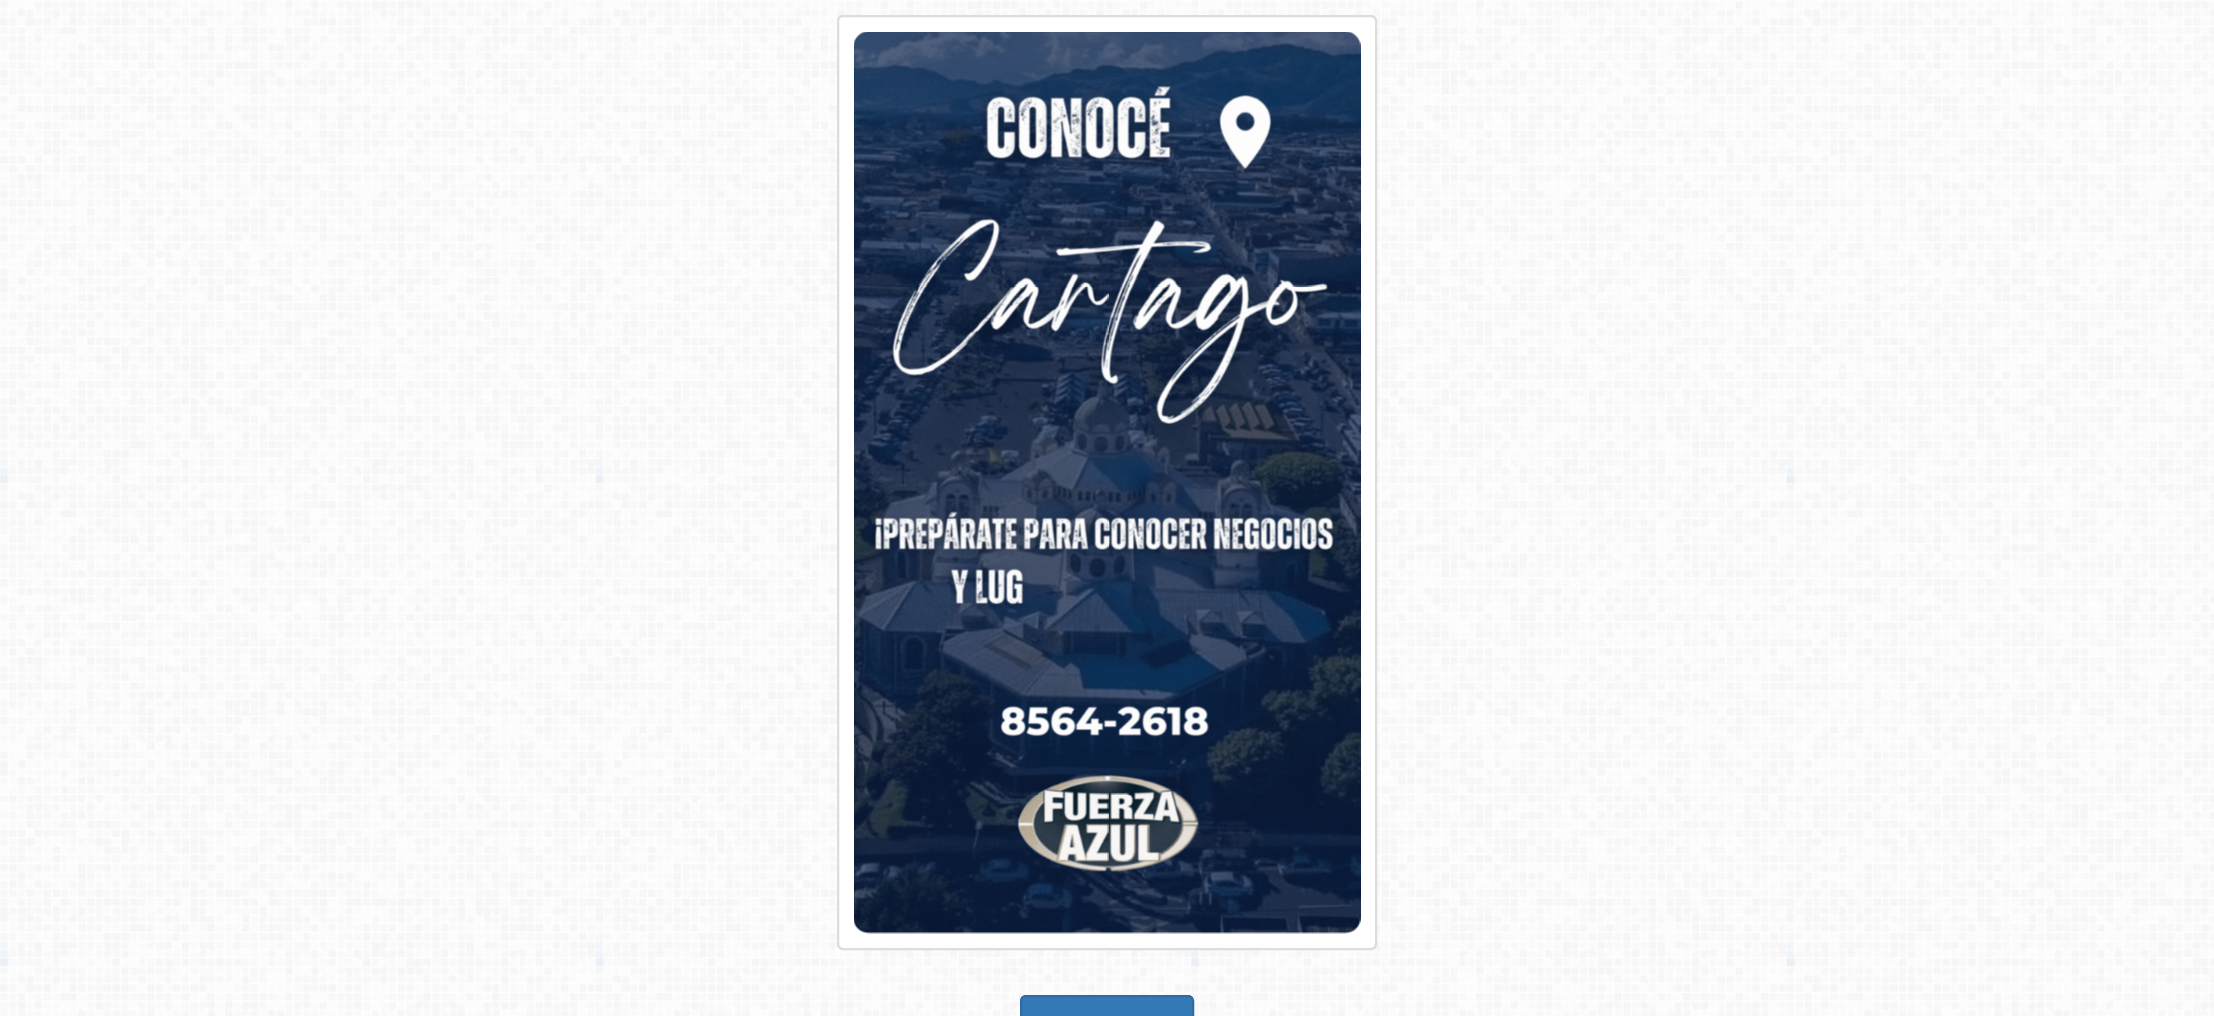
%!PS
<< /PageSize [2214 1016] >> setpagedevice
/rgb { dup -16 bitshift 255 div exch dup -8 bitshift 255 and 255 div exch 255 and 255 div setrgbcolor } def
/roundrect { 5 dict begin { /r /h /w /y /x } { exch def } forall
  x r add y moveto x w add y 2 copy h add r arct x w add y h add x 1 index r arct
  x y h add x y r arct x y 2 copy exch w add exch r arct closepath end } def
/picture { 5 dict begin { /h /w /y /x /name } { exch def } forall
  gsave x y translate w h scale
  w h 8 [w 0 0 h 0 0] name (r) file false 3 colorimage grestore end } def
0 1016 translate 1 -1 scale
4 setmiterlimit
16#FFFFFF rgb
0 0 2214 1016 rectfill
(pic1.raw) 0 0 2214 1016 picture
838 16 538 933 5 roundrect gsave fill grestore
16#DDDDDD rgb
2 setlinewidth
stroke
(pic2.raw) 854 32 507 902 picture
16#337AB7 rgb
1021 996 172 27 5 roundrect gsave fill grestore
16#2E6DA4 rgb
stroke
showpage
